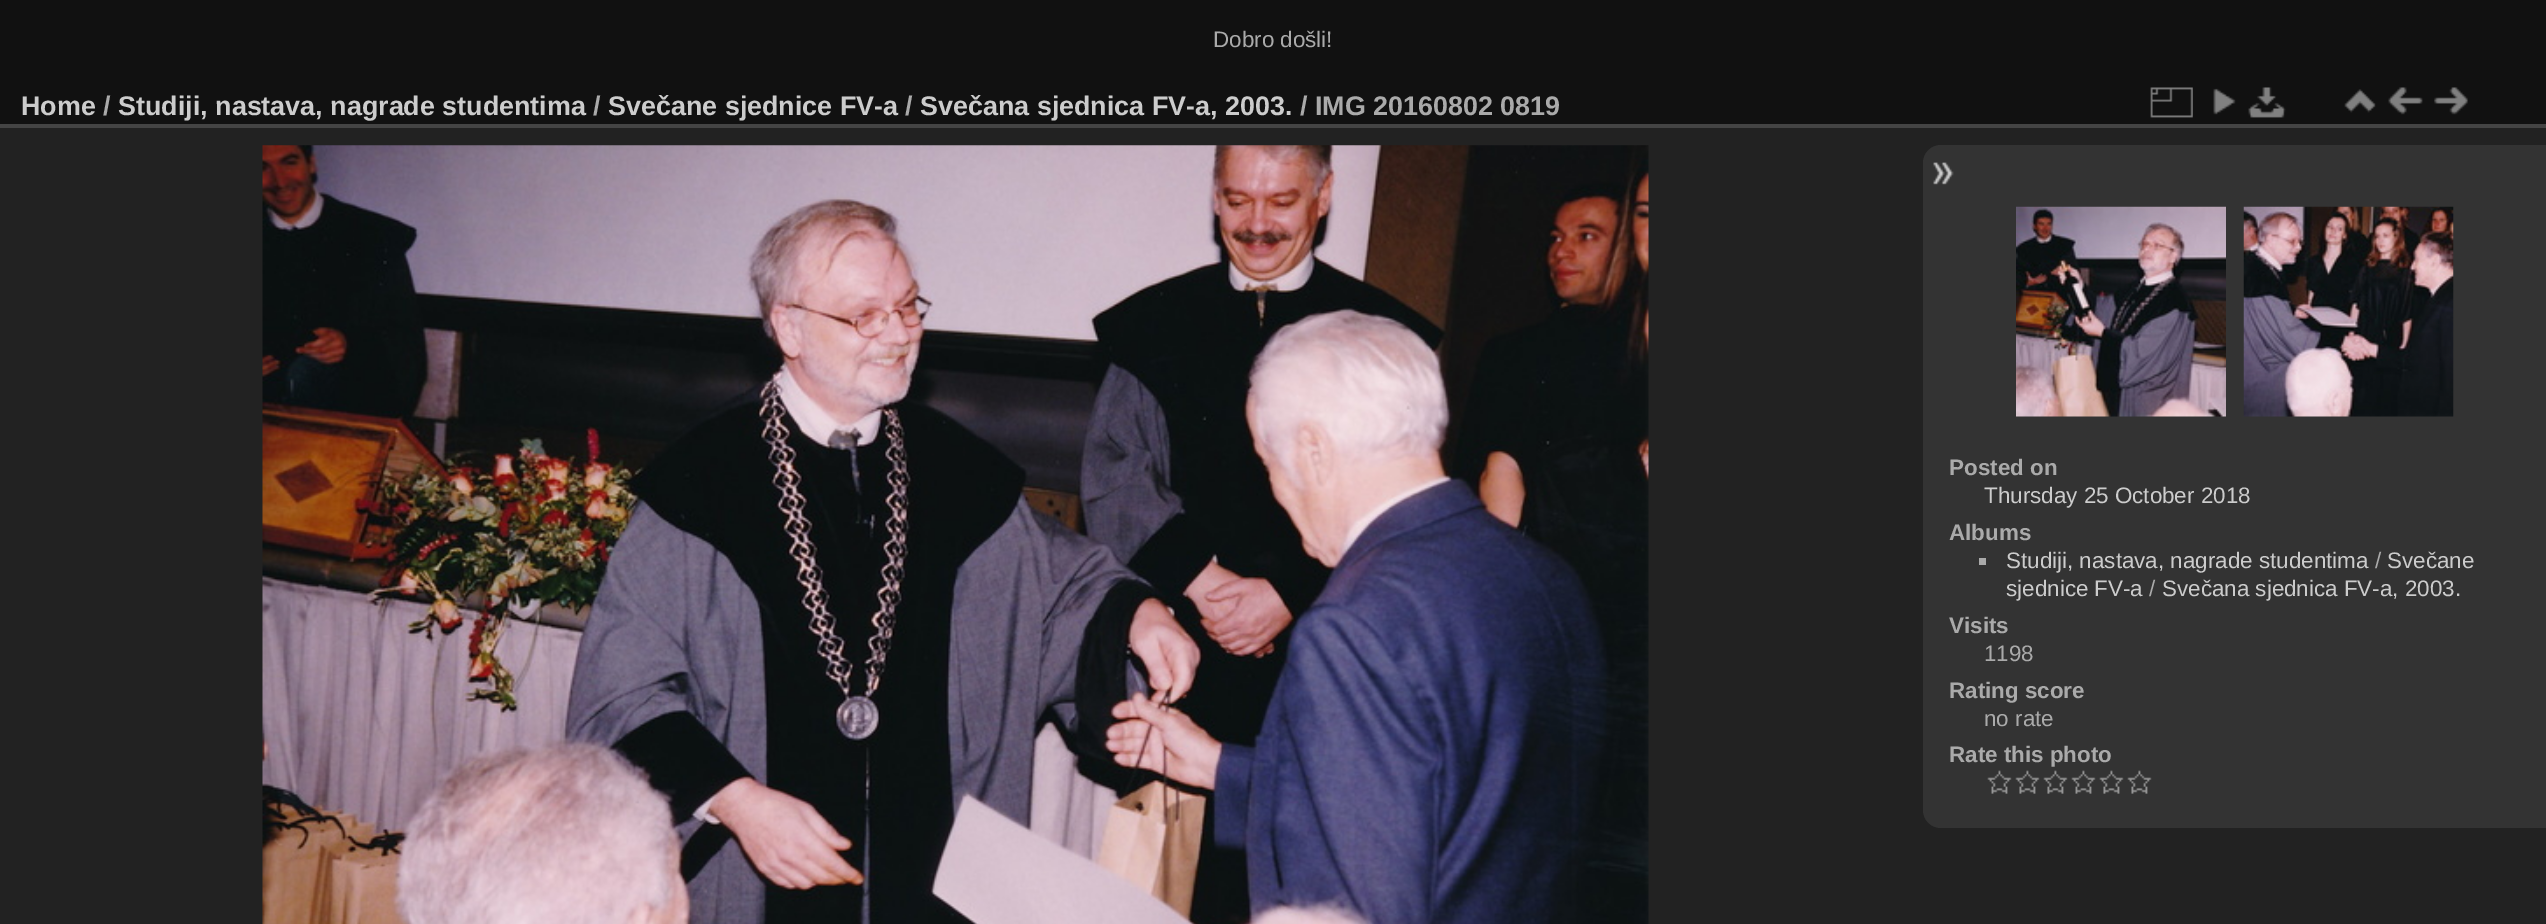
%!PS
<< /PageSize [2546 924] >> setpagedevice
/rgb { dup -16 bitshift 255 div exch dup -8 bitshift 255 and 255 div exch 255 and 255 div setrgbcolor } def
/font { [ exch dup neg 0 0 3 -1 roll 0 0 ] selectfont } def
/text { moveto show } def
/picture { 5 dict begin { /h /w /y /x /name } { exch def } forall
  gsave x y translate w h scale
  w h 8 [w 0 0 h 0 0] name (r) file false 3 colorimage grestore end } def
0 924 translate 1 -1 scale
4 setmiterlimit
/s1 { /LiberationSans-Regular 22.4 font 16#AAAAAA rgb } def
/s2 { /LiberationSans-Bold 26.9 font 16#CCCCCC rgb } def
/s3 { /LiberationSans-Bold 26.9 font 16#AAAAAA rgb } def
/s4 { /LiberationSans-Bold 22.4 font 16#AAAAAA rgb } def
/s5 { /LiberationSans-Regular 22.4 font 16#CCCCCC rgb } def
16#111111 rgb
0 0 2546 924 rectfill
s1
(Dobro došli!) 1213 47 text
16#222222 rgb
0 128 2546 796 rectfill
16#444444 rgb
0 124 2546 4 rectfill
s2
(Home) 21 115 text
s3
(/) 103 115 text
s2
(Studiji, nastava, nagrade studentima) 118 115 text
s3
(/) 593 115 text
s2
(Svečane sjednice FV-a) 608 115 text
s3
(/) 905 115 text
s2
(Svečana sjednica FV-a, 2003.) 920 115 text
s3
(/ IMG 20160802 0819) 1300 115 text
(pic1.raw) 2150 87 43 31 picture
(pic2.raw) 2213 88 23 27 picture
(pic3.raw) 2248 87 38 31 picture
(pic4.raw) 2344 89 32 24 picture
(pic5.raw) 2388 87 35 28 picture
(pic6.raw) 2434 87 34 28 picture
(pic7.raw) 262 145 1387 779 picture
16#333333 rgb
1941 145 moveto 2546 145 lineto 2546 828 lineto 1941 828 lineto 1931 828 1923 820 1923 810 curveto 1923 163 lineto 1923 153 1931 145 1941 145 curveto closepath fill
(pic8.raw) 1933 162 21 23 picture
(pic9.raw) 2016 206 210 211 picture
(pic10.raw) 2243 206 211 211 picture
s4
(Posted on) 1949 475 text
s5
(Thursday 25 October 2018) 1984 503 text
s4
(Albums) 1949 540 text
1979 558 7 7 rectfill
s5
(Studiji, nastava, nagrade studentima) 2006 568 text
s1
(/) 2375 568 text
s5
(Svečane) 2387 568 text
(sjednice FV-a) 2006 596 text
s1
(/) 2149 596 text
s5
(Svečana sjednica FV-a, 2003.) 2162 596 text
s4
(Visits) 1949 633 text
s1
(1198) 1984 661 text
s4
(Rating score) 1949 698 text
s1
(no rate) 1984 726 text
s4
(Rate this photo) 1949 762 text
(pic11.raw) 1987 770 25 24 picture
(pic12.raw) 2015 770 25 24 picture
(pic12.raw) 2043 770 25 24 picture
(pic13.raw) 2071 770 25 24 picture
(pic12.raw) 2099 770 25 24 picture
(pic12.raw) 2127 770 25 24 picture
showpage
